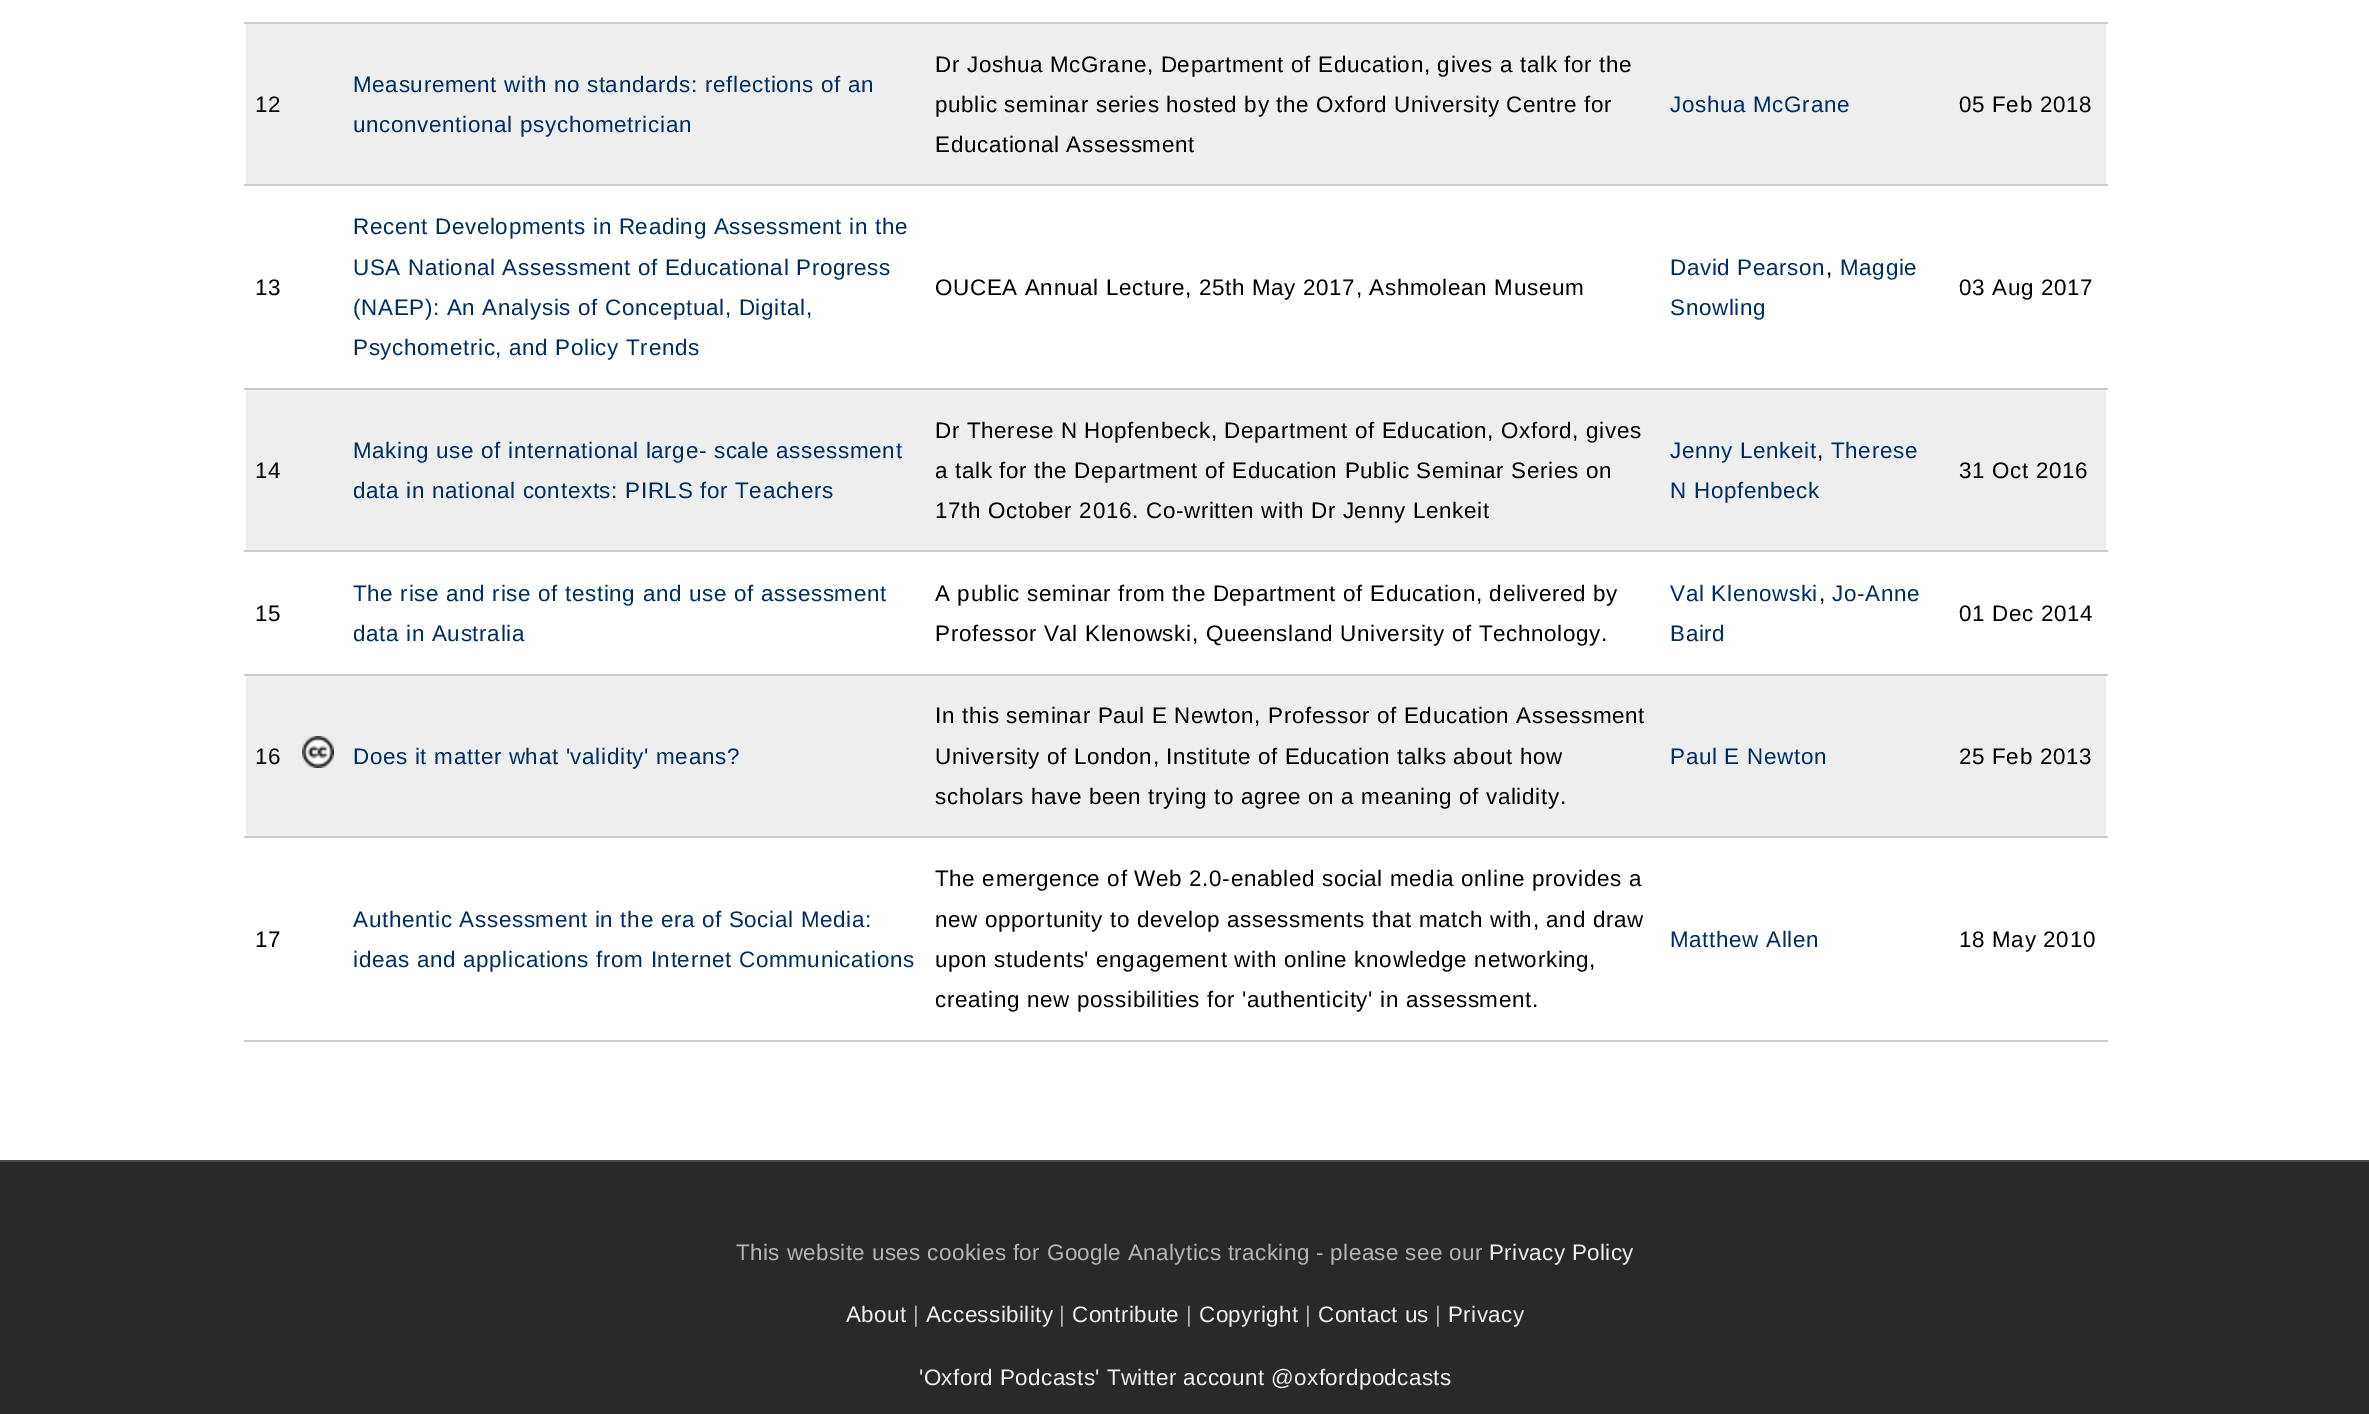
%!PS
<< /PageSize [2369 1414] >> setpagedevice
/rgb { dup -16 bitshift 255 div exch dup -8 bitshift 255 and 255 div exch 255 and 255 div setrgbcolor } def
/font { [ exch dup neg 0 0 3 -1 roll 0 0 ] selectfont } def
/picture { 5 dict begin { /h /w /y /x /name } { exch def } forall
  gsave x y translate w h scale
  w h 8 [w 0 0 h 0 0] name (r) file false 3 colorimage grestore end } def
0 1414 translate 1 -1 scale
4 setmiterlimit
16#FFFFFF rgb
0 0 2369 1414 rectfill
16#CCCCCC rgb
244 22 1864 2 rectfill
16#EEEEEE rgb
246 24 1860 160 rectfill
16#CCCCCC rgb
244 184 1864 2 rectfill
/LiberationSans-Regular 22.4 font
16#000000 rgb
255 112 moveto 0.67 0 (12) ashow
16#002D62 rgb
353 92 moveto 0.67 0 (Measurement with no standards: reflections of an) ashow
353 132 moveto 0.67 0 (unconventional psychometrician) ashow
16#000000 rgb
935 72 moveto 0.67 0 (Dr Joshua McGrane, Department of Education, gives a talk for the) ashow
935 112 moveto 0.67 0 (public seminar series hosted by the Oxford University Centre for) ashow
935 152 moveto 0.67 0 (Educational Assessment) ashow
16#002D62 rgb
1670 112 moveto 0.67 0 (Joshua McGrane) ashow
16#000000 rgb
1959 112 moveto 0.67 0 (05 Feb 2018) ashow
16#CCCCCC rgb
244 388 1864 2 rectfill
16#000000 rgb
255 295 moveto 0.67 0 (13) ashow
16#002D62 rgb
353 234 moveto 0.67 0 (Recent Developments in Reading Assessment in the) ashow
353 275 moveto 0.67 0 (USA National Assessment of Educational Progress) ashow
353 315 moveto 0.67 0 (\(NAEP\): An Analysis of Conceptual, Digital,) ashow
353 355 moveto 0.67 0 (Psychometric, and Policy Trends) ashow
16#000000 rgb
935 295 moveto 0.67 0 (OUCEA Annual Lecture, 25th May 2017, Ashmolean Museum) ashow
16#002D62 rgb
1670 275 moveto 0.67 0 (David Pearson) ashow
16#000000 rgb
1826 275 moveto 0.67 0 (,) ashow
16#002D62 rgb
1840 275 moveto 0.67 0 (Maggie) ashow
1670 315 moveto 0.67 0 (Snowling) ashow
16#000000 rgb
1959 295 moveto 0.67 0 (03 Aug 2017) ashow
16#EEEEEE rgb
246 390 1860 160 rectfill
16#CCCCCC rgb
244 550 1864 2 rectfill
16#000000 rgb
255 478 moveto 0.67 0 (14) ashow
16#002D62 rgb
353 458 moveto 0.67 0 (Making use of international large- scale assessment) ashow
353 498 moveto 0.67 0 (data in national contexts: PIRLS for Teachers) ashow
16#000000 rgb
935 438 moveto 0.67 0 (Dr Therese N Hopfenbeck, Department of Education, Oxford, gives) ashow
935 478 moveto 0.67 0 (a talk for the Department of Education Public Seminar Series on) ashow
935 518 moveto 0.67 0 (17th October 2016. Co-written with Dr Jenny Lenkeit) ashow
16#002D62 rgb
1670 458 moveto 0.67 0 (Jenny Lenkeit) ashow
16#000000 rgb
1817 458 moveto 0.67 0 (,) ashow
16#002D62 rgb
1831 458 moveto 0.67 0 (Therese) ashow
1670 498 moveto 0.67 0 (N Hopfenbeck) ashow
16#000000 rgb
1959 478 moveto 0.67 0 (31 Oct 2016) ashow
16#CCCCCC rgb
244 674 1864 2 rectfill
16#000000 rgb
255 621 moveto 0.67 0 (15) ashow
16#002D62 rgb
353 601 moveto 0.67 0 (The rise and rise of testing and use of assessment) ashow
353 641 moveto 0.67 0 (data in Australia) ashow
16#000000 rgb
935 601 moveto 0.67 0 (A public seminar from the Department of Education, delivered by) ashow
935 641 moveto 0.67 0 (Professor Val Klenowski, Queensland University of Technology.) ashow
16#002D62 rgb
1670 601 moveto 0.67 0 (Val Klenowski) ashow
16#000000 rgb
1819 601 moveto 0.67 0 (,) ashow
16#002D62 rgb
1832 601 moveto 0.67 0 (Jo-Anne) ashow
1670 641 moveto 0.67 0 (Baird) ashow
16#000000 rgb
1959 621 moveto 0.67 0 (01 Dec 2014) ashow
16#EEEEEE rgb
246 676 1860 160 rectfill
16#CCCCCC rgb
244 836 1864 2 rectfill
16#000000 rgb
255 764 moveto 0.67 0 (16) ashow
(pic1.raw) 302 736 32 32 picture
16#002D62 rgb
353 764 moveto 0.67 0 (Does it matter what 'validity' means?) ashow
16#000000 rgb
935 723 moveto 0.67 0 (In this seminar Paul E Newton, Professor of Education Assessment) ashow
935 764 moveto 0.67 0 (University of London, Institute of Education talks about how) ashow
935 804 moveto 0.67 0 (scholars have been trying to agree on a meaning of validity.) ashow
16#002D62 rgb
1670 764 moveto 0.67 0 (Paul E Newton) ashow
16#000000 rgb
1959 764 moveto 0.67 0 (25 Feb 2013) ashow
16#CCCCCC rgb
244 1040 1864 2 rectfill
16#000000 rgb
255 947 moveto 0.67 0 (17) ashow
16#002D62 rgb
353 927 moveto 0.67 0 (Authentic Assessment in the era of Social Media:) ashow
353 967 moveto 0.67 0 (ideas and applications from Internet Communications) ashow
16#000000 rgb
935 886 moveto 0.67 0 (The emergence of Web 2.0-enabled social media online provides a) ashow
935 927 moveto 0.67 0 (new opportunity to develop assessments that match with, and draw) ashow
935 967 moveto 0.67 0 (upon students' engagement with online knowledge networking,) ashow
935 1007 moveto 0.67 0 (creating new possibilities for 'authenticity' in assessment.) ashow
16#002D62 rgb
1670 947 moveto 0.67 0 (Matthew Allen) ashow
16#000000 rgb
1959 947 moveto 0.67 0 (18 May 2010) ashow
16#292929 rgb
0 1162 2369 252 rectfill
16#494949 rgb
0 1160 2369 2 rectfill
16#B4B4B4 rgb
736 1260 moveto 0.4 0 (This website uses cookies for Google Analytics tracking - please see our) ashow
16#EEEEEE rgb
1489 1260 moveto 0.4 0 (Privacy Policy) ashow
846 1322 moveto 0.4 0 (About) ashow
16#B4B4B4 rgb
913 1322 moveto 0.4 0 (|) ashow
16#EEEEEE rgb
926 1322 moveto 0.4 0 (Accessibility) ashow
16#B4B4B4 rgb
1059 1322 moveto 0.4 0 (|) ashow
16#EEEEEE rgb
1072 1322 moveto 0.4 0 (Contribute) ashow
16#B4B4B4 rgb
1186 1322 moveto 0.4 0 (|) ashow
16#EEEEEE rgb
1199 1322 moveto 0.4 0 (Copyright) ashow
16#B4B4B4 rgb
1305 1322 moveto 0.4 0 (|) ashow
16#EEEEEE rgb
1318 1322 moveto 0.4 0 (Contact us) ashow
16#B4B4B4 rgb
1435 1322 moveto 0.4 0 (|) ashow
16#EEEEEE rgb
1448 1322 moveto 0.4 0 (Privacy) ashow
919 1385 moveto 0.4 0 ('Oxford Podcasts' Twitter account @oxfordpodcasts) ashow
showpage
